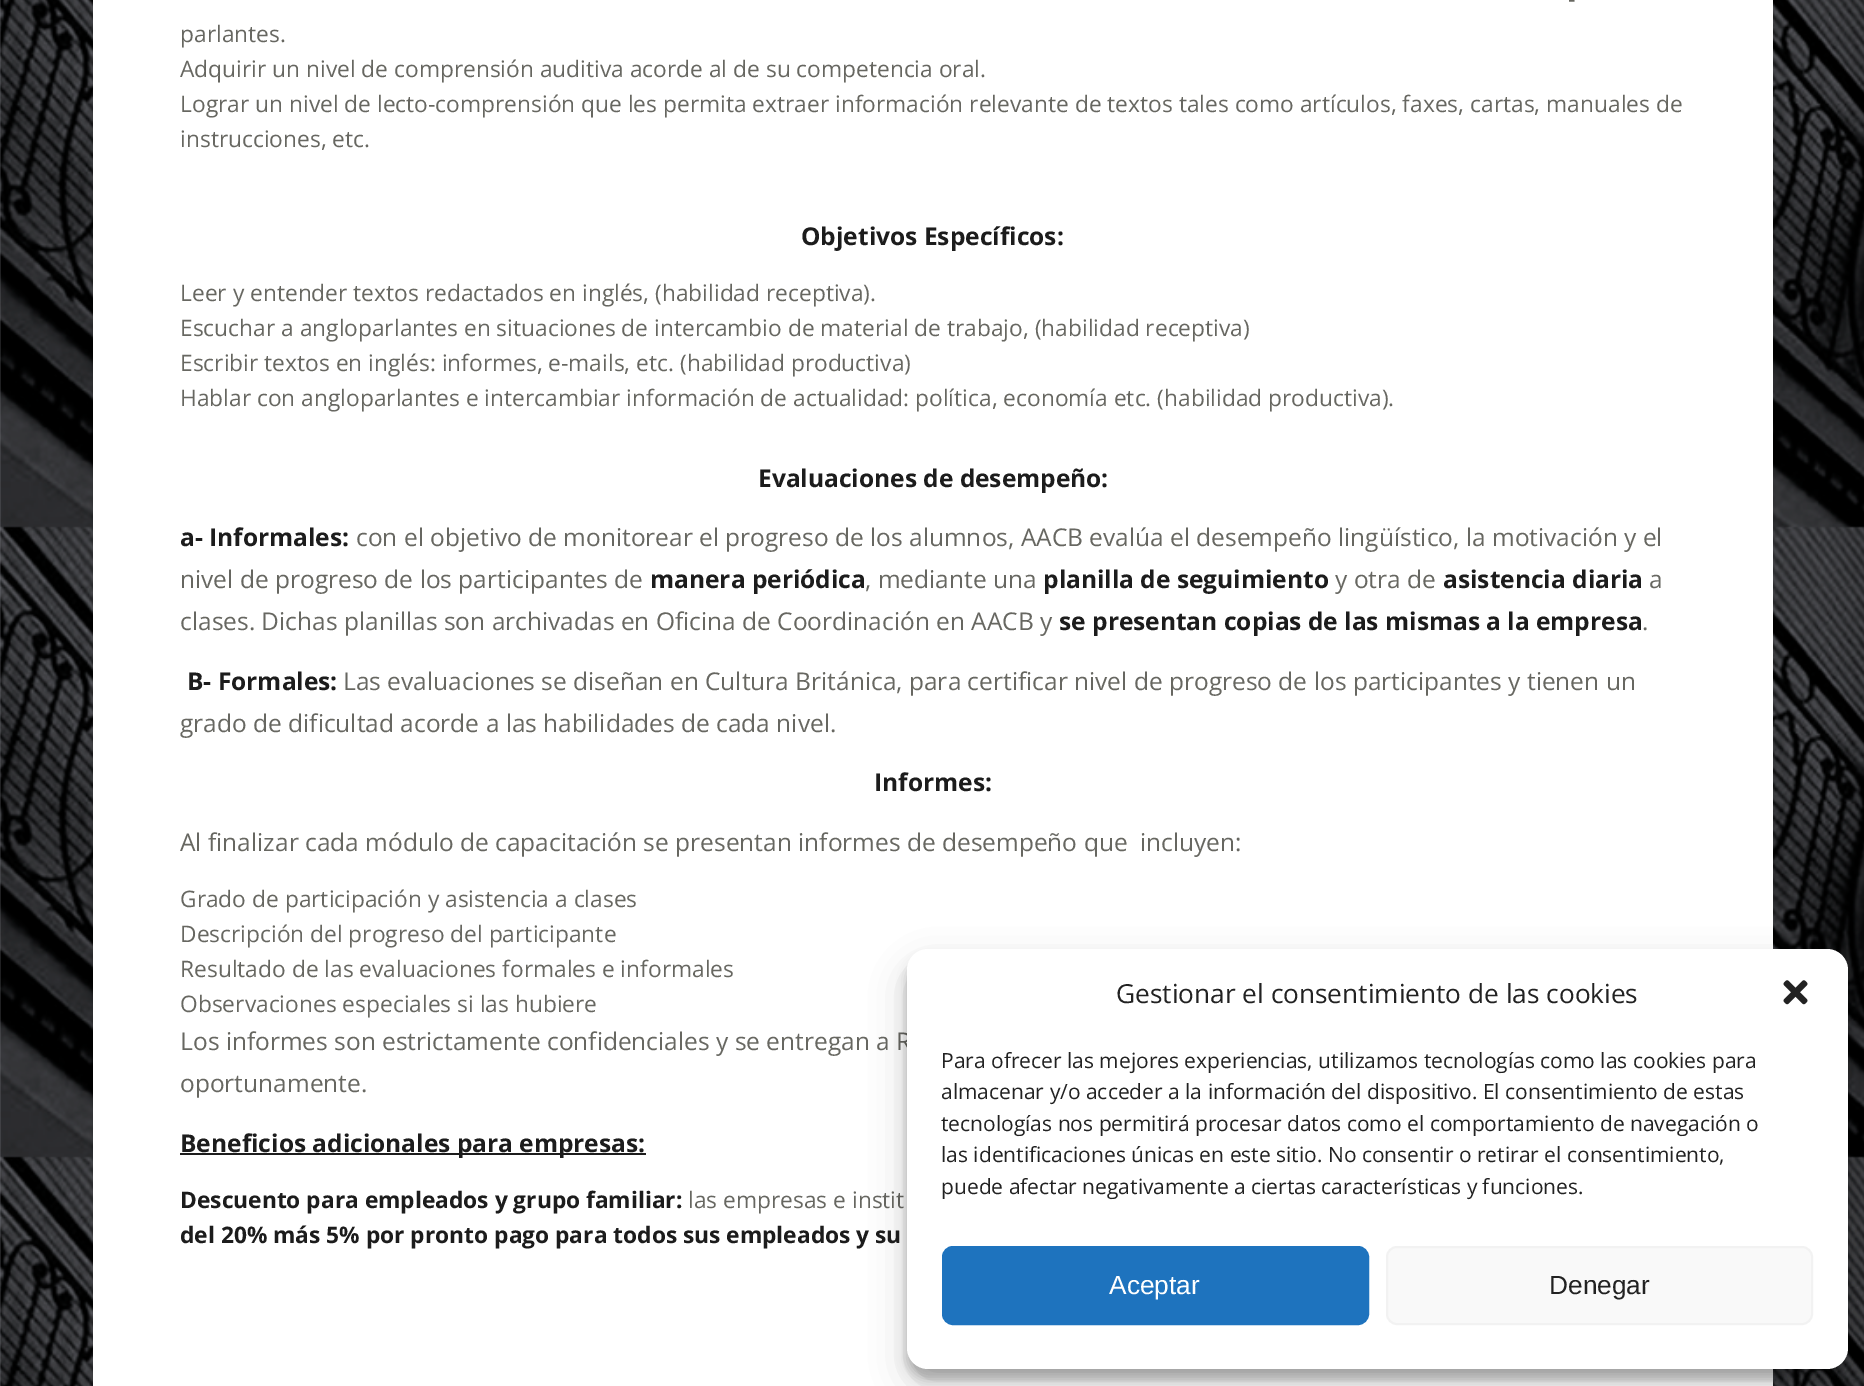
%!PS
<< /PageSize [1864 1386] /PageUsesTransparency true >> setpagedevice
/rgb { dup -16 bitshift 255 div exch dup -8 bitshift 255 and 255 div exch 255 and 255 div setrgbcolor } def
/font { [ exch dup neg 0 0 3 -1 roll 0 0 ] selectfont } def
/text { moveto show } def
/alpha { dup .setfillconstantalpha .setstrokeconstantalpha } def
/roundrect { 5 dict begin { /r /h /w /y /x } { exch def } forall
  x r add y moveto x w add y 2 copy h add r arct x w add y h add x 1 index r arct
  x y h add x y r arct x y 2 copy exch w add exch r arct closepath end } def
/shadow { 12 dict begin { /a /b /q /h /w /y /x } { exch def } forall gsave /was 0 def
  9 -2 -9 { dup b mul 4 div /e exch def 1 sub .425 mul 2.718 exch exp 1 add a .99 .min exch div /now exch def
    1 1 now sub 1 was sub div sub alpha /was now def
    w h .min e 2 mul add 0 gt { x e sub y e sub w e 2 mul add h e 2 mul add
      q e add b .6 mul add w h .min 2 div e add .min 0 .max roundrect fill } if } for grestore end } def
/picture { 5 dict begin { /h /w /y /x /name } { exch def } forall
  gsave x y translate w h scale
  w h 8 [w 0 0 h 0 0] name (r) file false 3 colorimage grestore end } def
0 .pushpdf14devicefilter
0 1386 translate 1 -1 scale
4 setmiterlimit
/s1 { /OpenSans-Regular 22.75 font 16#676761 rgb } def
/s2 { /OpenSans-Bold 24.5 font 16#1C1C1C rgb } def
/s3 { /OpenSans-Regular 24.5 font 16#676761 rgb } def
/s4 { /OpenSans-Bold 22.75 font 16#1C1C1C rgb } def
/s5 { /OpenSans-Regular 26.25 font 16#222222 rgb } def
/s6 { /OpenSans-Regular 21 font 16#222222 rgb } def
/s7 { /LiberationSans-Regular 26.25 font 16#FFFFFF rgb } def
/s8 { /LiberationSans-Regular 26.25 font 16#222222 rgb } def
16#FFFFFF rgb
0 0 1864 1386 rectfill
(pic1.raw) 0 0 1864 1386 picture
16#000000 rgb
93 -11 1680 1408 0 3.5 0.1 shadow
16#FFFFFF rgb
93 0 1680 1386 rectfill
s1
(-) 1568 7 text
(parlantes.) 180 42 text
(Adquirir un nivel de comprensión auditiva acorde al de su competencia oral.) 180 77 text
(Lograr un nivel de lecto-comprensión que les permita extraer información relevante de textos tales como artículos, faxes, cartas, manuales de) 180 112 text
(instrucciones, etc.) 180 147 text
s2
(Objetivos Específicos:) 801 245 text
s1
(Leer y entender textos redactados en inglés, \(habilidad receptiva\).) 180 301 text
(Escuchar a angloparlantes en situaciones de intercambio de material de trabajo, \(habilidad receptiva\)) 180 336 text
(Escribir textos en inglés: informes, e-mails, etc. \(habilidad productiva\)) 180 371 text
(Hablar con angloparlantes e intercambiar información de actualidad: política, economía etc. \(habilidad productiva\).) 180 406 text
s2
(Evaluaciones de desempeño:) 758 487 text
(a- Informales:) 180 546 text
s3
(con el objetivo de monitorear el progreso de los alumnos, AACB evalúa el desempeño lingüístico, la motivación y el) 356 546 text
(nivel de progreso de los participantes de) 180 588 text
s2
(manera periódica) 650 588 text
s3
(, mediante una) 865 588 text
s2
(planilla de seguimiento) 1043 588 text
s3
(y otra de) 1335 588 text
s2
(asistencia diaria) 1443 588 text
s3
(a) 1649 588 text
(clases. Dichas planillas son archivadas en Oficina de Coordinación en AACB y) 180 630 text
s2
(se presentan copias de las mismas a la empresa) 1059 630 text
s3
(.) 1642 630 text
s2
(B- Formales:) 187 690 text
s3
(Las evaluaciones se diseñan en Cultura Británica, para certificar nivel de progreso de los participantes y tienen un) 343 690 text
(grado de dificultad acorde a las habilidades de cada nivel.) 180 732 text
s2
(Informes:) 874 791 text
s3
(Al finalizar cada módulo de capacitación se presentan informes de desempeño que  incluyen:) 180 851 text
s1
(Grado de participación y asistencia a clases) 180 907 text
(Descripción del progreso del participante) 180 942 text
(Resultado de las evaluaciones formales e informales) 180 977 text
(Observaciones especiales si las hubiere) 180 1012 text
s3
(Los informes son estrictamente confidenciales y se entregan a R) 180 1050 text
(oportunamente.) 180 1092 text
16#1C1C1C rgb
180 1153 466 2 rectfill
s2
(Beneficios adicionales para empresas:) 180 1152 text
s4
(Descuento para empleados y grupo familiar:) 180 1208 text
s1
(las empresas e instit) 688 1208 text
s4
(del 20% más 5% por pronto pago para todos sus empleados y su) 180 1243 text
16#000000 rgb
907 959 941 420 21 5 0.23 shadow
907 966 941 420 21 17.5 0.19 shadow
16#FFFFFF rgb
907 949 941 420 21 roundrect fill
s5
(Gestionar el consentimiento de las cookies) 1116 1003 text
(pic2.raw) 1783 980 25 25 picture
s6
(Para ofrecer las mejores experiencias, utilizamos tecnologías como las cookies para) 941 1068 text
(almacenar y/o acceder a la información del dispositivo. El consentimiento de estas) 941 1099 text
(tecnologías nos permitirá procesar datos como el comportamiento de navegación o) 941 1131 text
(las identificaciones únicas en este sitio. No consentir o retirar el consentimiento,) 941 1162 text
(puede afectar negativamente a ciertas características y funciones.) 941 1194 text
16#1E73BE rgb
943 1247 425 77 10 roundrect gsave fill grestore
2 setlinewidth
stroke
s7
(Aceptar) 1109 1294 text
16#F9F9F9 rgb
1387 1247 425 77 10 roundrect gsave fill grestore
16#F2F2F2 rgb
stroke
s8
(Denegar) 1549 1294 text
.poppdf14devicefilter showpage
